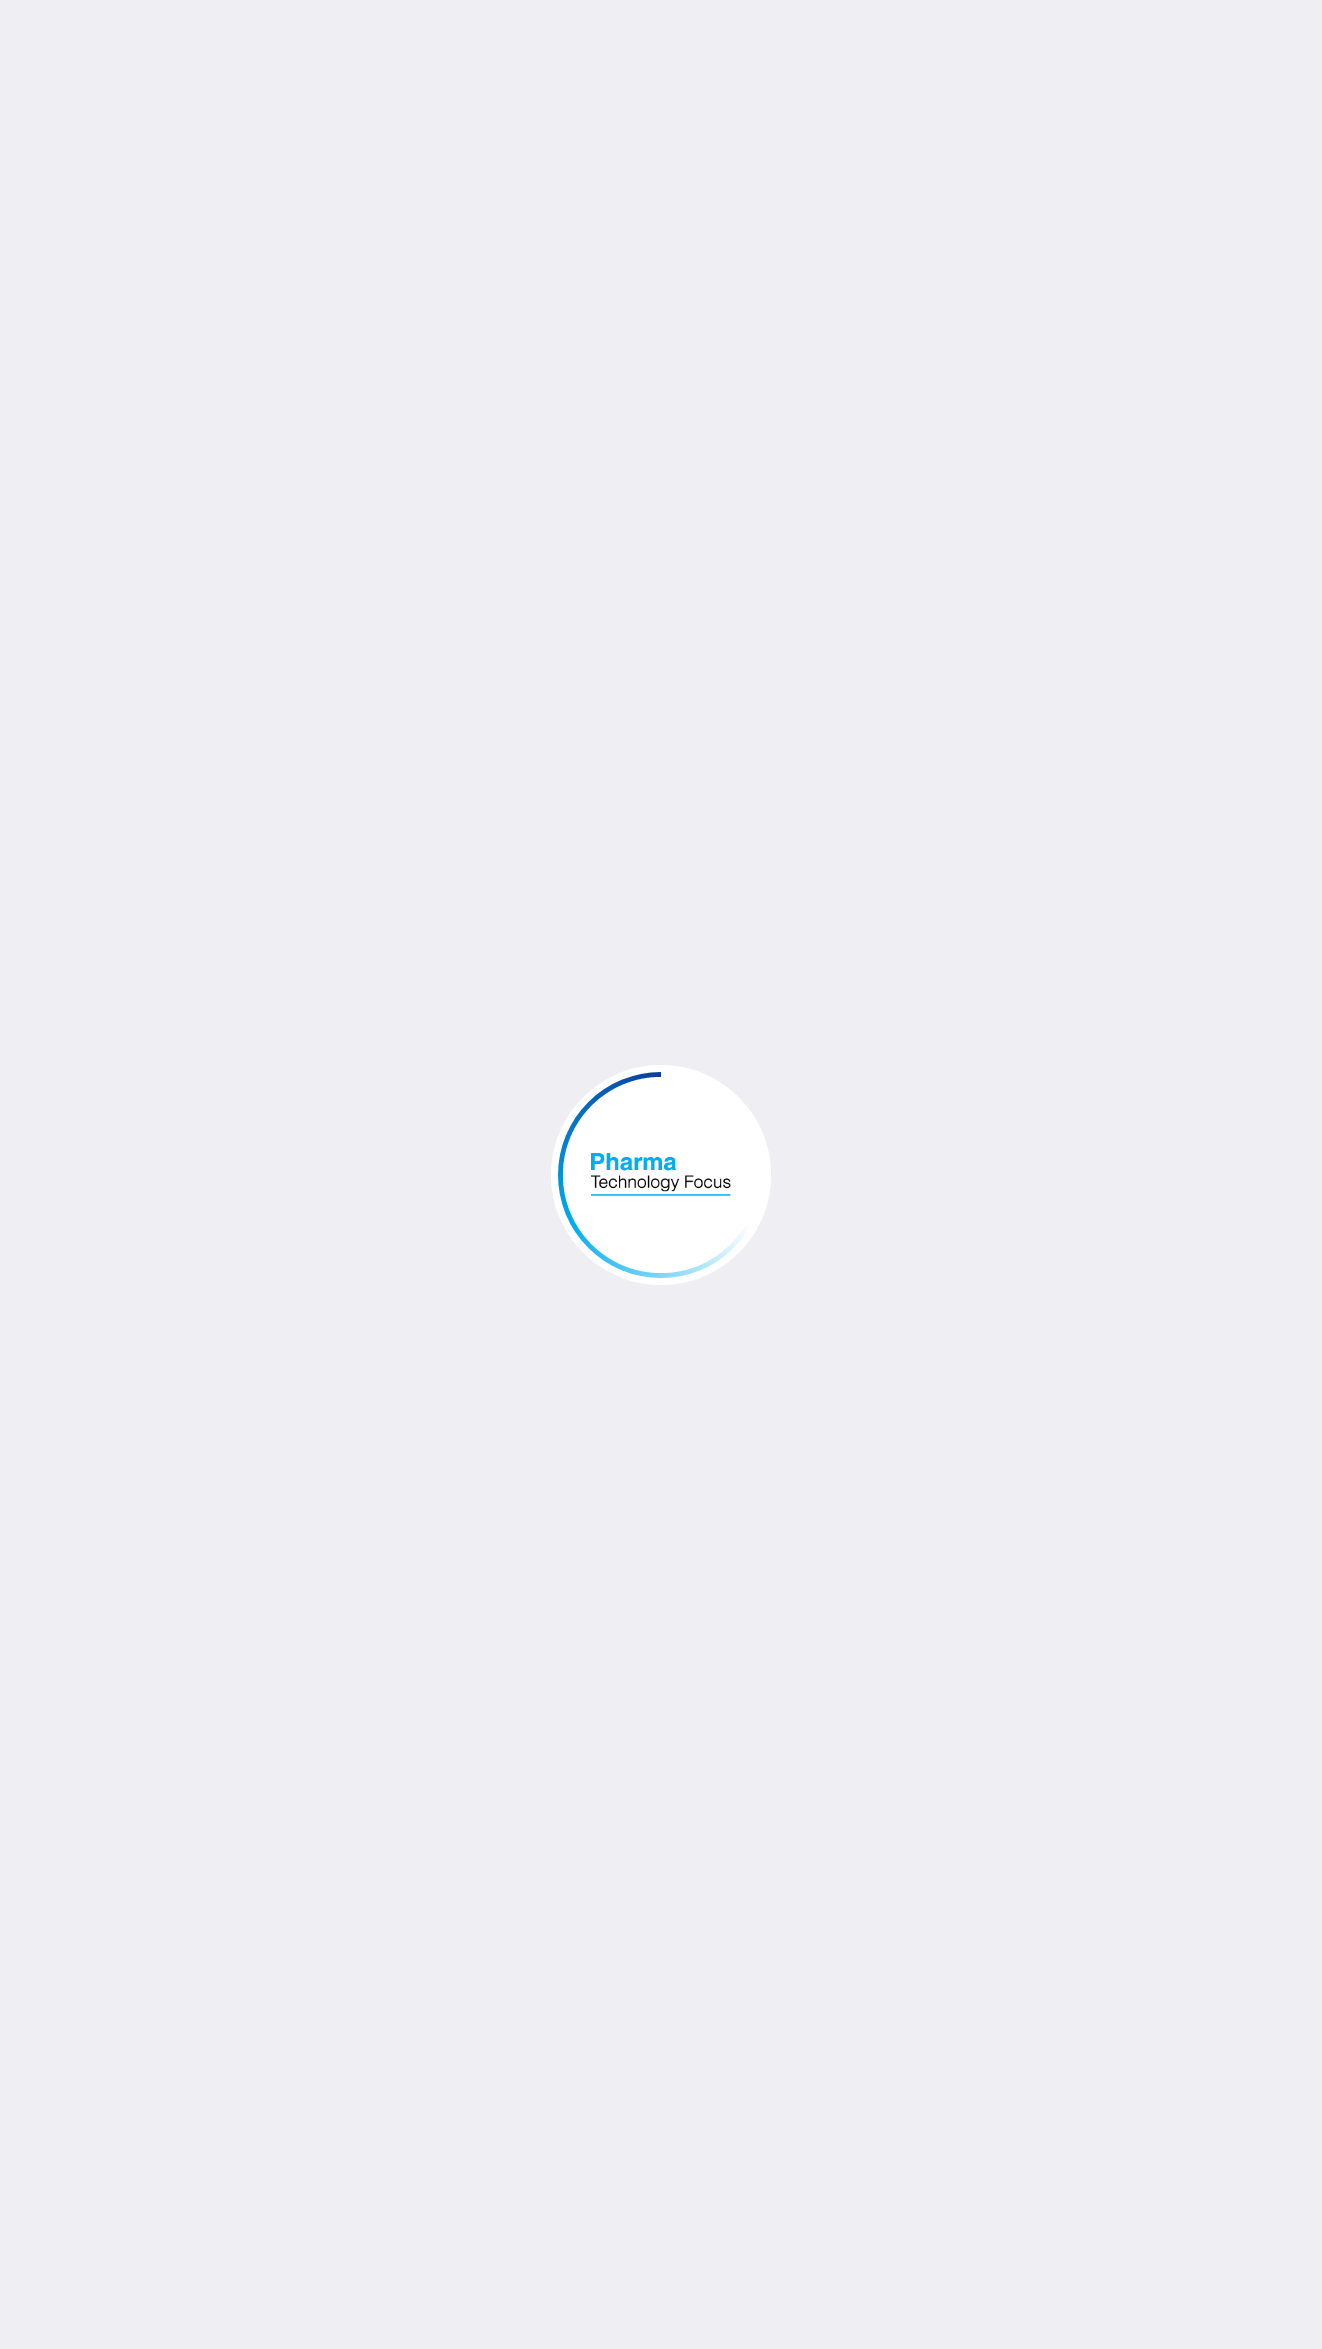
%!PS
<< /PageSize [1322 2349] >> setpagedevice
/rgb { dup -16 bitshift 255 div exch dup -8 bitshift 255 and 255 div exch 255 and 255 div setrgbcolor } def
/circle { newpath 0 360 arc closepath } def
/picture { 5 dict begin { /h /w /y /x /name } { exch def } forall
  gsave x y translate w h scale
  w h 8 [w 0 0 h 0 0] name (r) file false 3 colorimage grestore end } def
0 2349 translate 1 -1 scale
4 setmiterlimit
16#EEEEF3 rgb
0 0 1322 2349 rectfill
16#FFFFFF rgb
661 1175 110 circle fill
(pic1.raw) 558 1072 191 206 picture
661 1175 98 circle fill
(pic2.raw) 591 1153 140 44 picture
showpage
